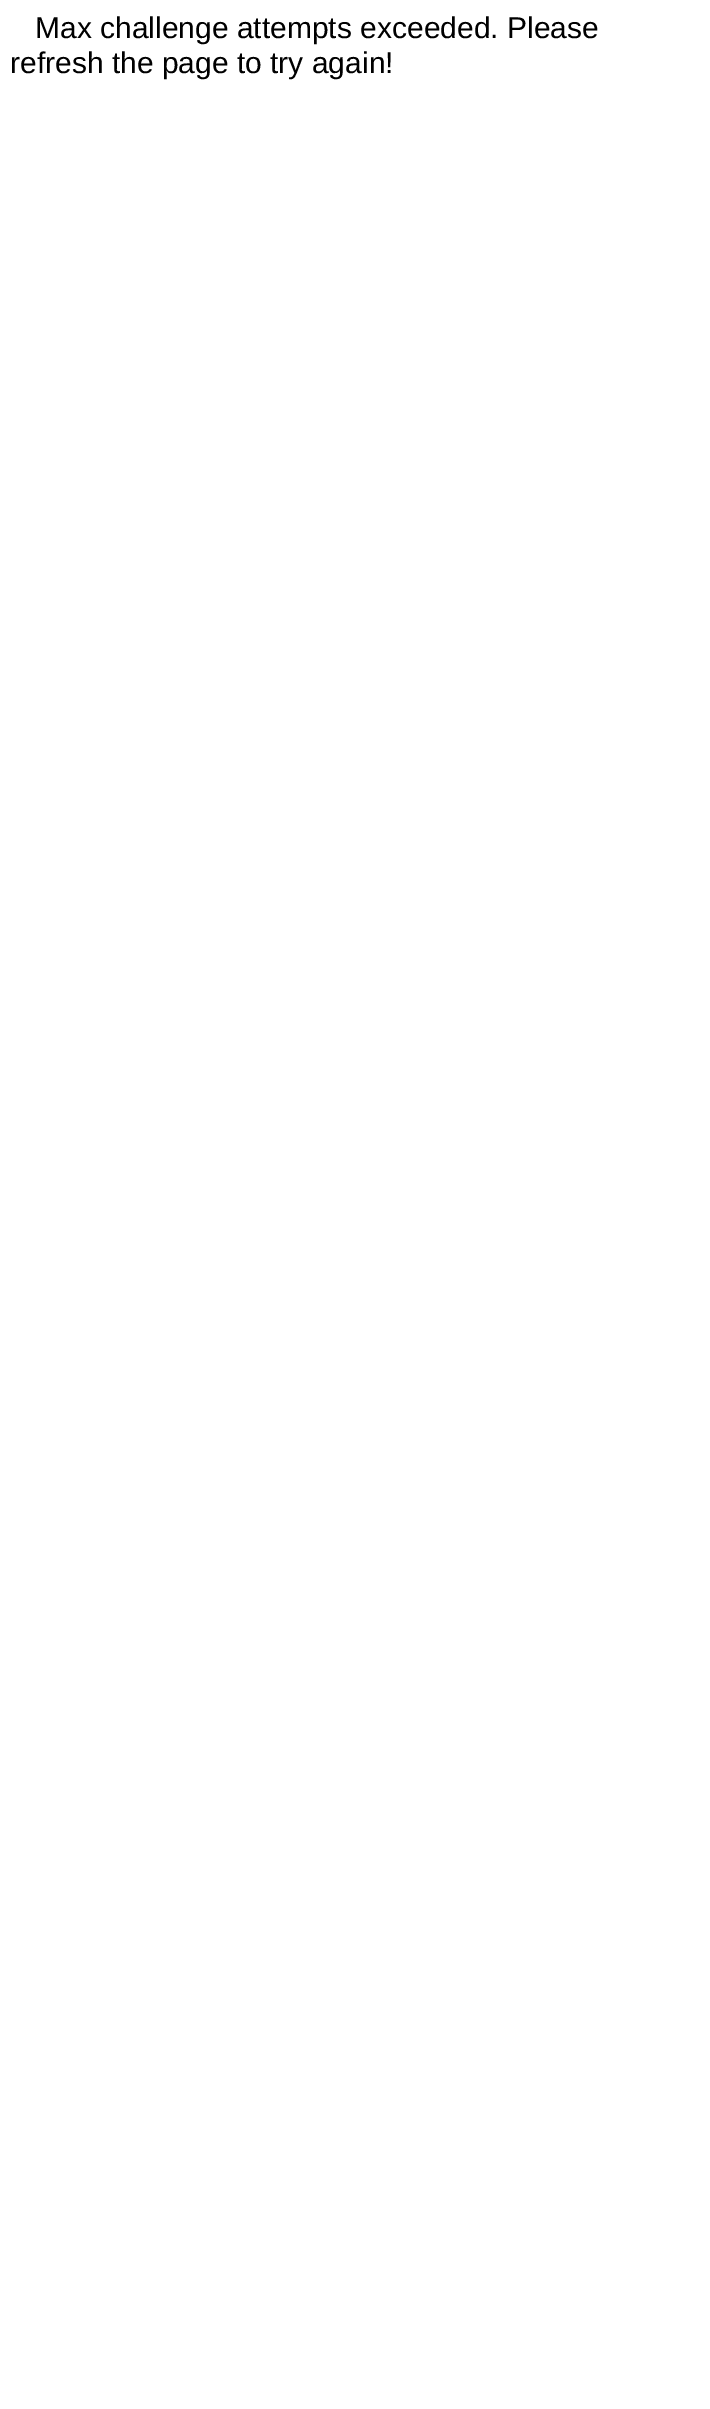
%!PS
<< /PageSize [710 2409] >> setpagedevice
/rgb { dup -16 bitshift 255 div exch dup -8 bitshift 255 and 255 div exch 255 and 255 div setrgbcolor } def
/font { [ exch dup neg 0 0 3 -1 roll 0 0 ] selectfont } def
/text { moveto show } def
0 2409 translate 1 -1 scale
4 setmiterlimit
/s1 { /LiberationSans-Regular 30 font 16#000000 rgb } def
16#FFFFFF rgb
0 0 710 2409 rectfill
s1
(Max challenge attempts exceeded. Please) 35 38 text
(refresh the page to try again!) 10 73 text
showpage
